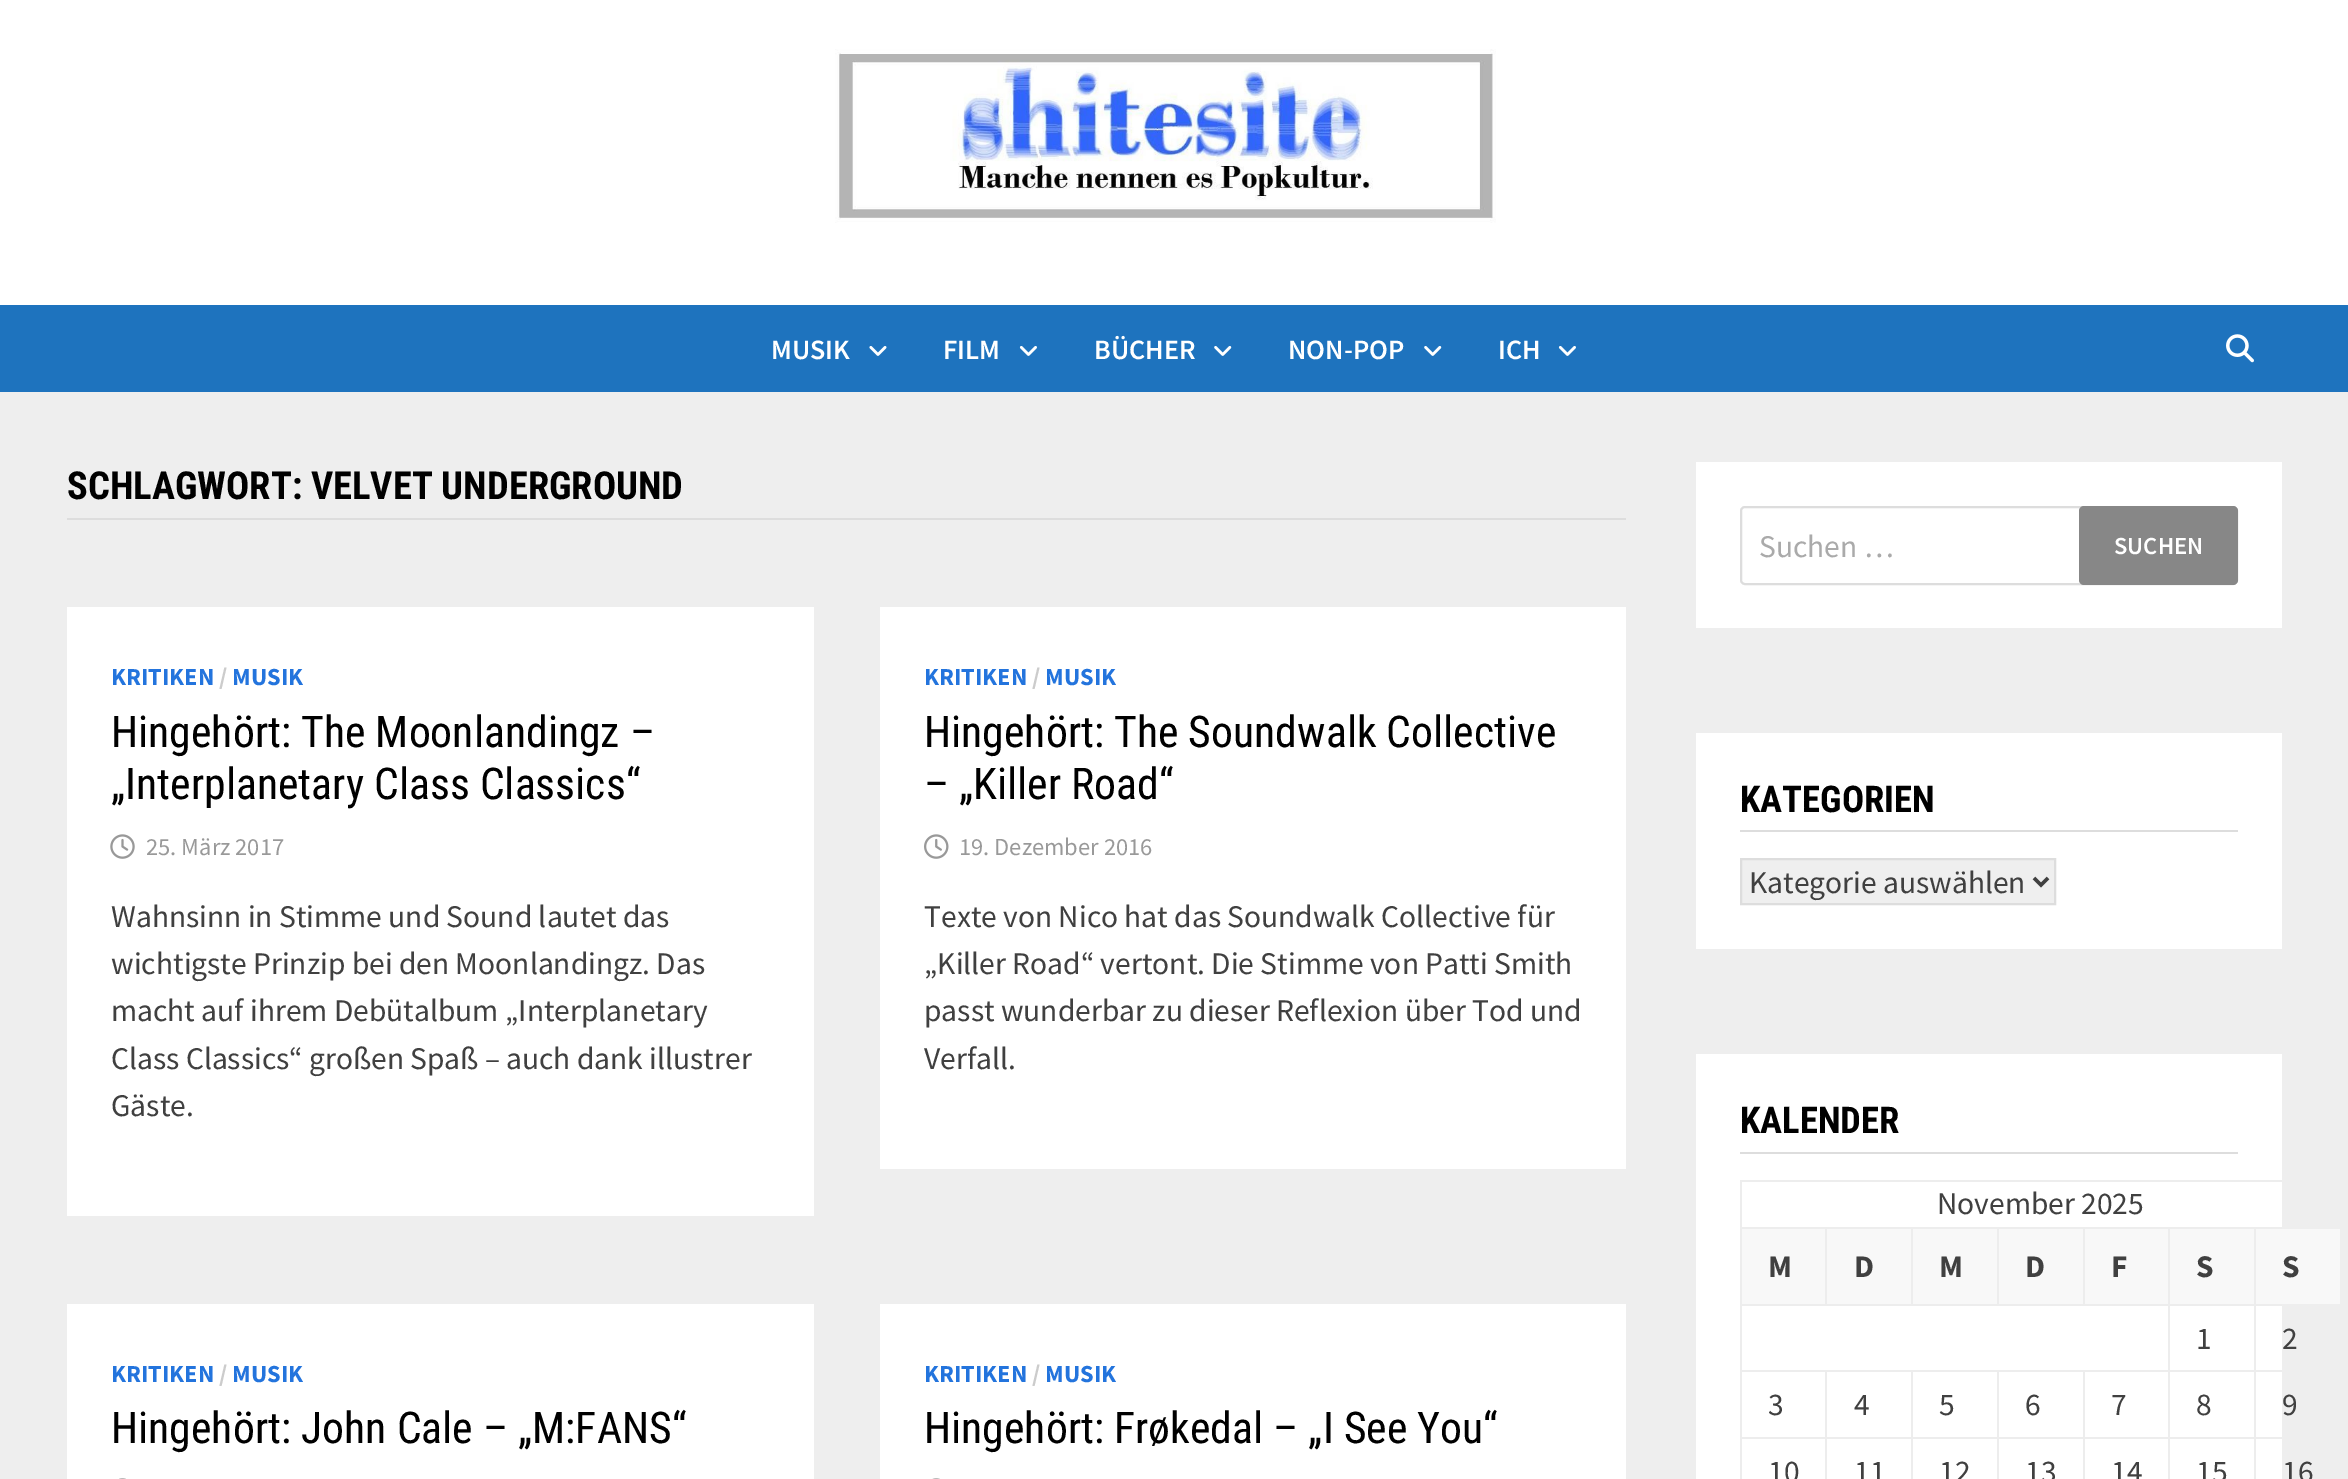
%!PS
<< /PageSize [2348 1479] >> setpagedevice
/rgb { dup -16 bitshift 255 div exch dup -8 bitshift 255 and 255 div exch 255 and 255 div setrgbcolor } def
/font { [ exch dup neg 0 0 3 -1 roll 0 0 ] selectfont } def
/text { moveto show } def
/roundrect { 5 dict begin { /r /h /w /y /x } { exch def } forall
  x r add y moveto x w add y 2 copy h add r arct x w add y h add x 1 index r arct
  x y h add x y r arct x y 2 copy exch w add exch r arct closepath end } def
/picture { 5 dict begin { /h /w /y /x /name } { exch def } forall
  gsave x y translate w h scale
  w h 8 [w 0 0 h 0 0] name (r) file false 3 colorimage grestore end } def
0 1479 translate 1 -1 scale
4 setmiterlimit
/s1 { /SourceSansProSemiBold-SemiBold 28 font 16#FFFFFF rgb } def
/s2 { /RobotoCondensed-Bold 38.5 font 16#000000 rgb } def
/s3 { /SourceSansPro-Bold 24.5 font 16#2374DD rgb } def
/s4 { /SourceSansPro-Bold 24.5 font 16#CCCCCC rgb } def
/s5 { /RobotoCondensed-Regular 43.75 font 16#000000 rgb } def
/s6 { /SourceSansPro-Regular 24.5 font 16#999999 rgb } def
/s7 { /SourceSansPro-Regular 31.5 font 16#404040 rgb } def
/s8 { /SourceSansPro-Regular 31.5 font 16#AAAAAA rgb } def
/s9 { /SourceSansProSemiBold-SemiBold 24.5 font 16#FFFFFF rgb } def
/s10 { /RobotoCondensed-Bold 36.75 font 16#000000 rgb } def
/s11 { /SourceSansPro-Bold 31.5 font 16#404040 rgb } def
16#FFFFFF rgb
0 0 2348 1479 rectfill
(pic1.raw) 835 49 661 174 picture
16#1E73BE rgb
0 305 2348 87 rectfill
s1
(MUSIK) 771 359 text
(pic2.raw) 869 346 18 10 picture
(FILM) 943 359 text
(pic3.raw) 1019 346 18 10 picture
(BÜCHER) 1094 359 text
(pic4.raw) 1214 346 18 10 picture
(NON-POP) 1288 359 text
(pic4.raw) 1424 346 18 10 picture
(ICH) 1498 359 text
(pic3.raw) 1558 346 18 10 picture
(pic5.raw) 2226 334 28 29 picture
16#EEEEEE rgb
0 392 2348 1087 rectfill
16#DDDDDD rgb
67 518 1559 2 rectfill
s2
(SCHLAGWORT: VELVET UNDERGROUND) 67 499 text
16#FFFFFF rgb
67 607 747 609 rectfill
s3
(KRITIKEN) 111 685 text
s4
(/) 219 685 text
s3
(MUSIK) 232 685 text
s5
(Hingehört: The Moonlandingz –) 111 747 text
(„Interplanetary Class Classics“) 111 799 text
(pic6.raw) 110 834 25 25 picture
s6
(25. März 2017) 146 855 text
s7
(Wahnsinn in Stimme und Sound lautet das) 111 927 text
(wichtigste Prinzip bei den Moonlandingz. Das) 111 974 text
(macht auf ihrem Debütalbum „Interplanetary) 111 1021 text
(Class Classics“ großen Spaß – auch dank illustrer) 111 1069 text
(Gäste.) 111 1116 text
16#FFFFFF rgb
880 607 746 562 rectfill
s3
(KRITIKEN) 924 685 text
s4
(/) 1032 685 text
s3
(MUSIK) 1045 685 text
s5
(Hingehört: The Soundwalk Collective) 924 747 text
(– „Killer Road“) 924 799 text
(pic7.raw) 924 834 25 25 picture
s6
(19. Dezember 2016) 959 855 text
s7
(Texte von Nico hat das Soundwalk Collective für) 924 927 text
(„Killer Road“ vertont. Die Stimme von Patti Smith) 924 974 text
(passt wunderbar zu dieser Reflexion über Tod und) 924 1021 text
(Verfall.) 924 1069 text
16#FFFFFF rgb
67 1304 747 175 rectfill
s3
(KRITIKEN) 111 1382 text
s4
(/) 219 1382 text
s3
(MUSIK) 232 1382 text
s5
(Hingehört: John Cale – „M:FANS“) 111 1443 text
(pic8.raw) 119 1478 7 1 picture
16#FFFFFF rgb
880 1304 746 175 rectfill
s3
(KRITIKEN) 924 1382 text
s4
(/) 1032 1382 text
s3
(MUSIK) 1045 1382 text
s5
(Hingehört: Frøkedal – „I See You“) 924 1443 text
(pic9.raw) 932 1478 8 1 picture
16#FFFFFF rgb
1696 462 586 166 rectfill
16#DDDDDD rgb
2 setlinewidth
1741 507 496 77 4 roundrect stroke
s8
(Suchen …) 1759 557 text
16#878787 rgb
2079 506 159 79 5 roundrect fill
s9
(SUCHEN) 2114 554 text
1696 733 586 216 rectfill
16#DDDDDD rgb
1740 830 498 2 rectfill
s10
(KATEGORIEN) 1740 812 text
16#EFEFEF rgb
1741 859 moveto 2055 859 lineto 2055 904 lineto 1741 904 lineto closepath gsave fill grestore
16#DDDDDD rgb
stroke
16#404040 rgb
3.5 setlinewidth
2034 878 moveto 2041 885 lineto 2048 878 lineto stroke
s7
(Kategorie auswählen) 1749 893 text
16#FFFFFF rgb
1696 1054 586 425 rectfill
16#DDDDDD rgb
1740 1152 498 2 rectfill
s10
(KALENDER) 1740 1133 text
16#EDEDED rgb
1740 1180 542 2 rectfill
1740 1180 2 299 rectfill
s7
(November 2025) 1937 1214 text
16#F8F8F8 rgb
1742 1229 83 75 rectfill
16#EDEDED rgb
2254 1227 28 2 rectfill
2254 1304 28 2 rectfill
2254 1370 28 2 rectfill
2254 1437 28 2 rectfill
2254 1437 2 42 rectfill
2168 1437 88 2 rectfill
2254 1370 2 69 rectfill
2168 1370 88 2 rectfill
2254 1304 2 68 rectfill
2168 1304 88 2 rectfill
2254 1227 2 79 rectfill
2168 1227 88 2 rectfill
2168 1437 2 42 rectfill
2083 1437 87 2 rectfill
2168 1370 2 69 rectfill
2083 1370 87 2 rectfill
2168 1304 2 68 rectfill
1740 1304 430 2 rectfill
2168 1227 2 79 rectfill
2083 1227 87 2 rectfill
2083 1227 2 79 rectfill
1997 1227 87 2 rectfill
1997 1227 2 79 rectfill
1911 1227 88 2 rectfill
1911 1227 2 79 rectfill
1825 1227 88 2 rectfill
1825 1227 2 79 rectfill
1740 1227 87 2 rectfill
s11
(M) 1768 1277 text
16#F8F8F8 rgb
1827 1229 84 75 rectfill
s11
(D) 1854 1277 text
16#F8F8F8 rgb
1913 1229 84 75 rectfill
s11
(M) 1939 1277 text
16#F8F8F8 rgb
1999 1229 84 75 rectfill
s11
(D) 2025 1277 text
16#F8F8F8 rgb
2085 1229 83 75 rectfill
s11
(F) 2111 1277 text
16#F8F8F8 rgb
2170 1229 84 75 rectfill
s11
(S) 2196 1277 text
16#F8F8F8 rgb
2256 1229 84 75 rectfill
s11
(S) 2282 1277 text
s7
(1) 2196 1349 text
(2) 2282 1349 text
16#EDEDED rgb
2083 1437 2 42 rectfill
1997 1437 87 2 rectfill
2083 1370 2 69 rectfill
1997 1370 87 2 rectfill
1997 1437 2 42 rectfill
1911 1437 88 2 rectfill
1997 1370 2 69 rectfill
1911 1370 88 2 rectfill
1911 1437 2 42 rectfill
1825 1437 88 2 rectfill
1911 1370 2 69 rectfill
1825 1370 88 2 rectfill
1825 1437 2 42 rectfill
1740 1437 87 2 rectfill
1825 1370 2 69 rectfill
1740 1370 87 2 rectfill
s7
(3) 1768 1415 text
(4) 1854 1415 text
(5) 1939 1415 text
(6) 2025 1415 text
(7) 2111 1415 text
(8) 2196 1415 text
(9) 2282 1415 text
(10) 1768 1482 text
(11) 1854 1482 text
(12) 1939 1482 text
(13) 2025 1482 text
(14) 2111 1482 text
(15) 2196 1482 text
(16) 2282 1482 text
showpage
